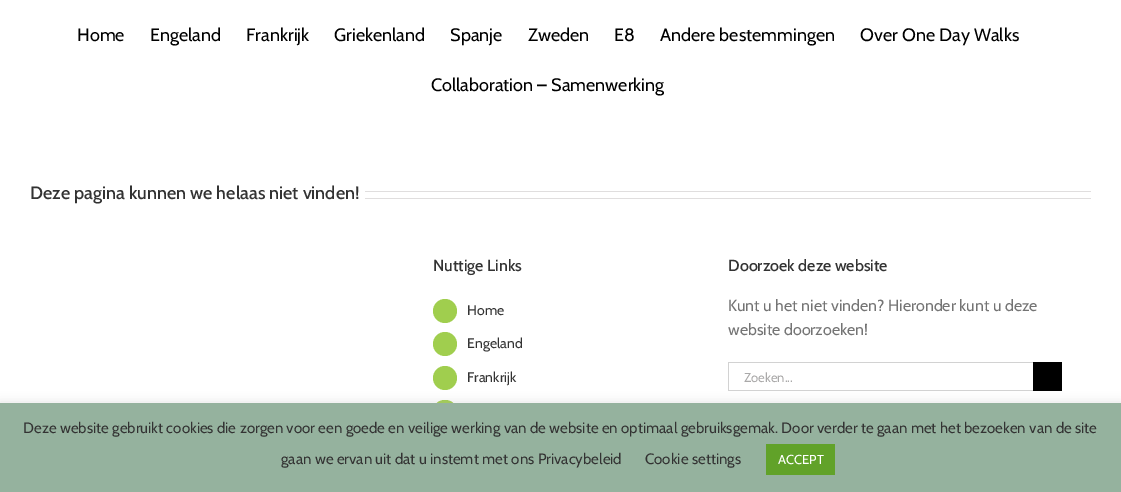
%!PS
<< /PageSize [1121 492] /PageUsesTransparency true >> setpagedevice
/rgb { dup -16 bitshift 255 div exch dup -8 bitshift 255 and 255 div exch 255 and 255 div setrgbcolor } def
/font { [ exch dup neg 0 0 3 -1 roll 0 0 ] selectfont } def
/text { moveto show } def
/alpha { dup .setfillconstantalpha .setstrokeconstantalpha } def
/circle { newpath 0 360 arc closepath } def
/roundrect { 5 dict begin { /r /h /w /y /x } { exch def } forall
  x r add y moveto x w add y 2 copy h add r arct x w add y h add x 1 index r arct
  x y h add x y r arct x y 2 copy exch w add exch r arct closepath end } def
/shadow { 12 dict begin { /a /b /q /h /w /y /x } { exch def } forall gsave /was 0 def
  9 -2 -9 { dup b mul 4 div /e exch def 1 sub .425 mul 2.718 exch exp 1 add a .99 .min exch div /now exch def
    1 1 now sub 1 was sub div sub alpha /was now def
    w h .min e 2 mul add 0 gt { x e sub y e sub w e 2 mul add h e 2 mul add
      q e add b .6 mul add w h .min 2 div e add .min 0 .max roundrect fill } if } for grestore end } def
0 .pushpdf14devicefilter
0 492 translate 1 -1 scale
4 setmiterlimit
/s1 { /Cabin-Regular 18 font 16#000000 rgb } def
/s2 { /Cabin-Medium 18 font 16#333333 rgb } def
/s3 { /Cabin-Medium 16 font 16#333333 rgb } def
/s4 { /Cabin-Regular 14 font 16#333333 rgb } def
/s5 { /Cabin-Regular 16 font 16#747474 rgb } def
/s6 { /Cabin-Regular 13 font 16#AAA9A9 rgb } def
/s7 { /Cabin-Regular 15 font 16#333333 rgb } def
/s8 { /Cabin-Regular 13 font 16#FFFFFF rgb } def
16#FFFFFF rgb
0 0 1121 492 rectfill
s1
(Home) 77 41 text
(Engeland) 150 41 text
(Frankrijk) 246 41 text
(Griekenland) 334 41 text
(Spanje) 450 41 text
(Zweden) 528 41 text
(E8) 614 41 text
(Andere bestemmingen) 660 41 text
(Over One Day Walks) 860 41 text
(Collaboration – Samenwerking) 431 91 text
s2
(Deze pagina kunnen we helaas niet vinden!) 30 199 text
16#E0DEDE rgb
365 191 726 1 rectfill
365 198 726 1 rectfill
s3
(Nuttige Links) 433 271 text
16#A0CE4E rgb
445 311 12 circle fill
s4
(Home) 467 315 text
16#A0CE4E rgb
445 344 12 circle fill
s4
(Engeland) 467 348 text
16#A0CE4E rgb
445 378 12 circle fill
s4
(Frankrijk) 467 382 text
16#A0CE4E rgb
433 400 24 23 11.5 roundrect fill
s3
(Doorzoek deze website) 728 271 text
s5
(Kunt u het niet vinden? Hieronder kunt u deze) 728 311 text
(website doorzoeken!) 728 335 text
16#D2D2D2 rgb
728 362 305 1 rectfill
728 390 305 1 rectfill
728 362 1 29 rectfill
s6
(Zoeken...) 744 382 text
16#000000 rgb
1033 362 29 29 rectfill
16#ACABAB rgb
0 402 1121 89 0 5 0.3 shadow
16#95B29E rgb
0 403 1121 89 rectfill
s7
(Deze website gebruikt cookies die zorgen voor een goede en veilige werking van de website en optimaal gebruiksgemak. Door verder te gaan met het bezoeken van de site) 23 433 text
(gaan we ervan uit dat u instemt met ons Privacybeleid) 281 464 text
(Cookie settings) 645 464 text
16#61A229 rgb
766 444 69 31 rectfill
s8
(ACCEPT) 778 464 text
.poppdf14devicefilter showpage
